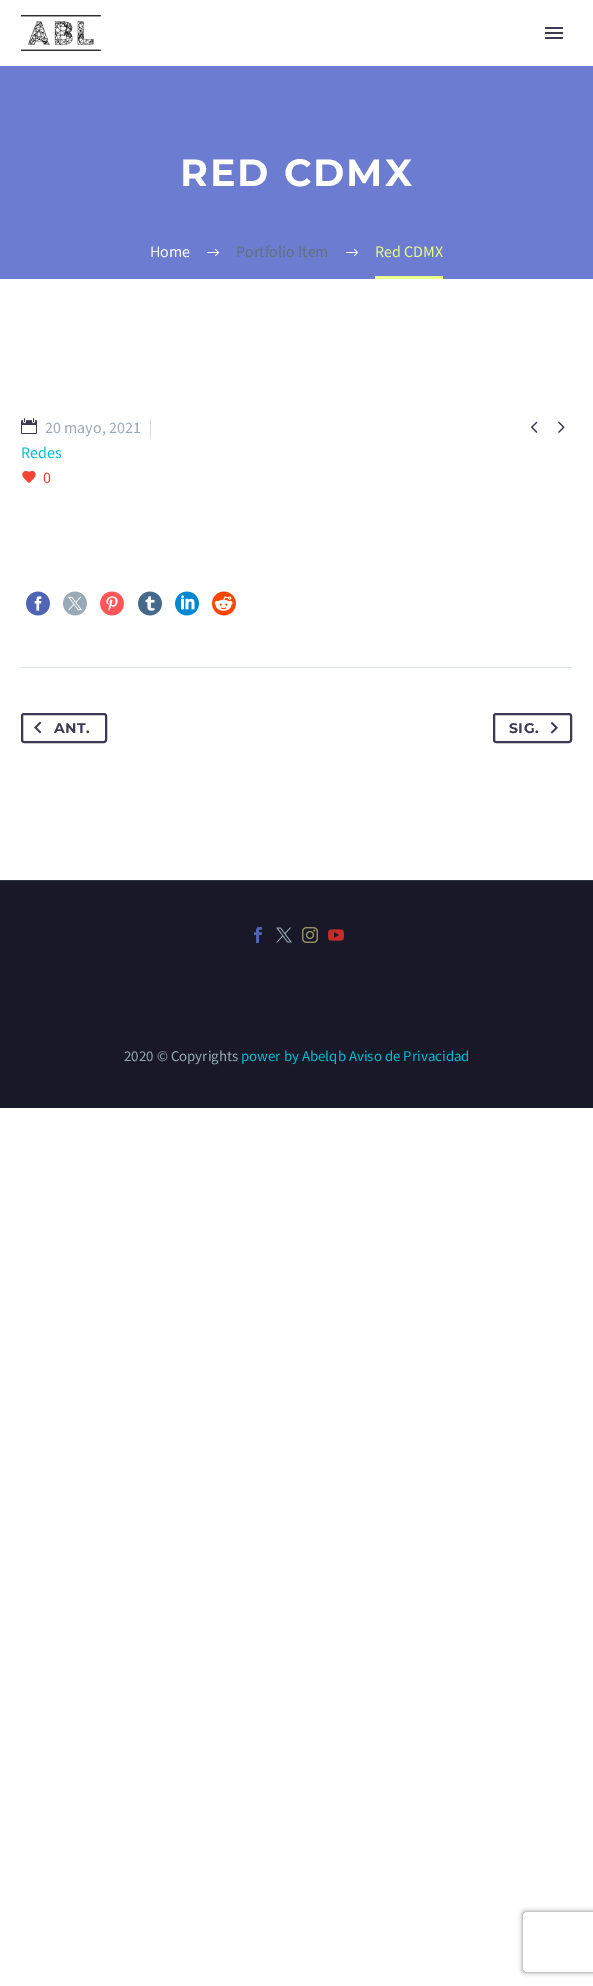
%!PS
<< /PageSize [593 1986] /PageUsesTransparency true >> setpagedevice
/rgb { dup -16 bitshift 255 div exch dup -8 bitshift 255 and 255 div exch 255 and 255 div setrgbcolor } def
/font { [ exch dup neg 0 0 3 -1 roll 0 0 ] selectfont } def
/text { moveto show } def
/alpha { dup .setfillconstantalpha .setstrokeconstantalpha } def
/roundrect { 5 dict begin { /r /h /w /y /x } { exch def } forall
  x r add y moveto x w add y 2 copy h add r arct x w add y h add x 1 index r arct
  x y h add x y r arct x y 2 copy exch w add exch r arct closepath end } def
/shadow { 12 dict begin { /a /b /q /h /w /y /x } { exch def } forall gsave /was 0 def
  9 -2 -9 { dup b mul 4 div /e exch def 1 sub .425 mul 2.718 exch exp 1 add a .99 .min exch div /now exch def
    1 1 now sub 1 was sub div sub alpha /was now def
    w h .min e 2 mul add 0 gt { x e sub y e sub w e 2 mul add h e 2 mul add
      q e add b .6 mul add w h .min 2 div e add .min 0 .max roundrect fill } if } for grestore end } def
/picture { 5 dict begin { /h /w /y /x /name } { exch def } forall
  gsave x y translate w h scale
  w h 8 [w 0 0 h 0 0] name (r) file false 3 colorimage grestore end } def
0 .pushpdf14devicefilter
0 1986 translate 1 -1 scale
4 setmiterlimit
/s1 { /SourceSansPro-Regular 16 font 16#FFFFFF rgb } def
/s2 { /SourceSansPro-Regular 16 font 16#5F727F rgb } def
/s3 { /SourceSansPro-Regular 16 font 16#E7FF89 rgb } def
/s4 { /SourceSansPro-Regular 16 font 16#99A9B5 rgb } def
/s5 { /SourceSansPro-Regular 16 font 16#00BCD4 rgb } def
/s6 { /SourceSansPro-Regular 16 font 16#F44336 rgb } def
/s7 { /SourceSansPro-Regular 14.9 font 16#99A9B5 rgb } def
/s8 { /SourceSansPro-Regular 14.9 font 16#00BCD4 rgb } def
16#FFFFFF rgb
0 0 593 1986 rectfill
(pic1.raw) 21 15 80 36 picture
16#3C3950 rgb
545 27 18 2 rectfill
545 32 18 2 rectfill
545 37 18 2 rectfill
16#6C7CD0 rgb
0 66 593 213 rectfill
/Montserrat-Bold 38 font
16#FFFFFF rgb
180 186 moveto 2 0 (RED CDMX) ashow
s1
(Home) 150 257 text
(pic2.raw) 207 249 12 7 picture
s2
(Portfolio Item) 236 257 text
(pic2.raw) 346 249 12 7 picture
16#E7FF89 rgb
375 276 68 3 rectfill
(Red CDMX) 375 257 text
(pic3.raw) 21 418 16 16 picture
s4
(20 mayo, 2021) 45 433 text
16#D4DEE1 rgb
150 419 1 20 rectfill
s5
(Redes) 21 458 text
(pic4.raw) 22 470 14 13 picture
s6
(0) 43 483 text
(pic5.raw) 531 421 7 12 picture
(pic6.raw) 558 421 7 12 picture
(pic7.raw) 26 591 24 25 picture
(pic8.raw) 63 591 24 25 picture
(pic9.raw) 100 591 24 25 picture
(pic10.raw) 138 591 24 25 picture
(pic11.raw) 175 591 24 25 picture
(pic12.raw) 212 591 24 25 picture
16#DFE5E8 rgb
21 667 551 1 rectfill
16#3C3950 rgb
2 setlinewidth
22 714 84 28 2 roundrect stroke
(pic13.raw) 34 721 8 13 picture
/Montserrat-Bold 14 font
54 733 moveto 0.5 0 (ANT.) ashow
494 714 77 28 2 roundrect stroke
509 733 moveto 0.5 0 (SIG.) ashow
(pic14.raw) 550 721 8 13 picture
16#181828 rgb
0 881 593 227 rectfill
16#313646 rgb
0 880 593 1 rectfill
(pic15.raw) 254 927 8 16 picture
(pic16.raw) 276 927 16 16 picture
(pic17.raw) 302 927 16 16 picture
(pic18.raw) 328 929 16 12 picture
s7
(2020 © Copyrights) 124 1061 text
s8
(power by Abelqb Aviso de Privacidad) 241 1061 text
gsave
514 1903 moveto 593 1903 lineto 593 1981 lineto 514 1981 lineto closepath 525 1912 moveto 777 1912 lineto 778 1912 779 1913 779 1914 curveto 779 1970 lineto 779 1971 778 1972 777 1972 curveto 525 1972 lineto 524 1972 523 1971 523 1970 curveto 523 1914 lineto 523 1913 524 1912 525 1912 curveto closepath eoclip newpath
16#808080 rgb
523 1912 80 60 2 2.5 1 shadow
grestore
.poppdf14devicefilter showpage
